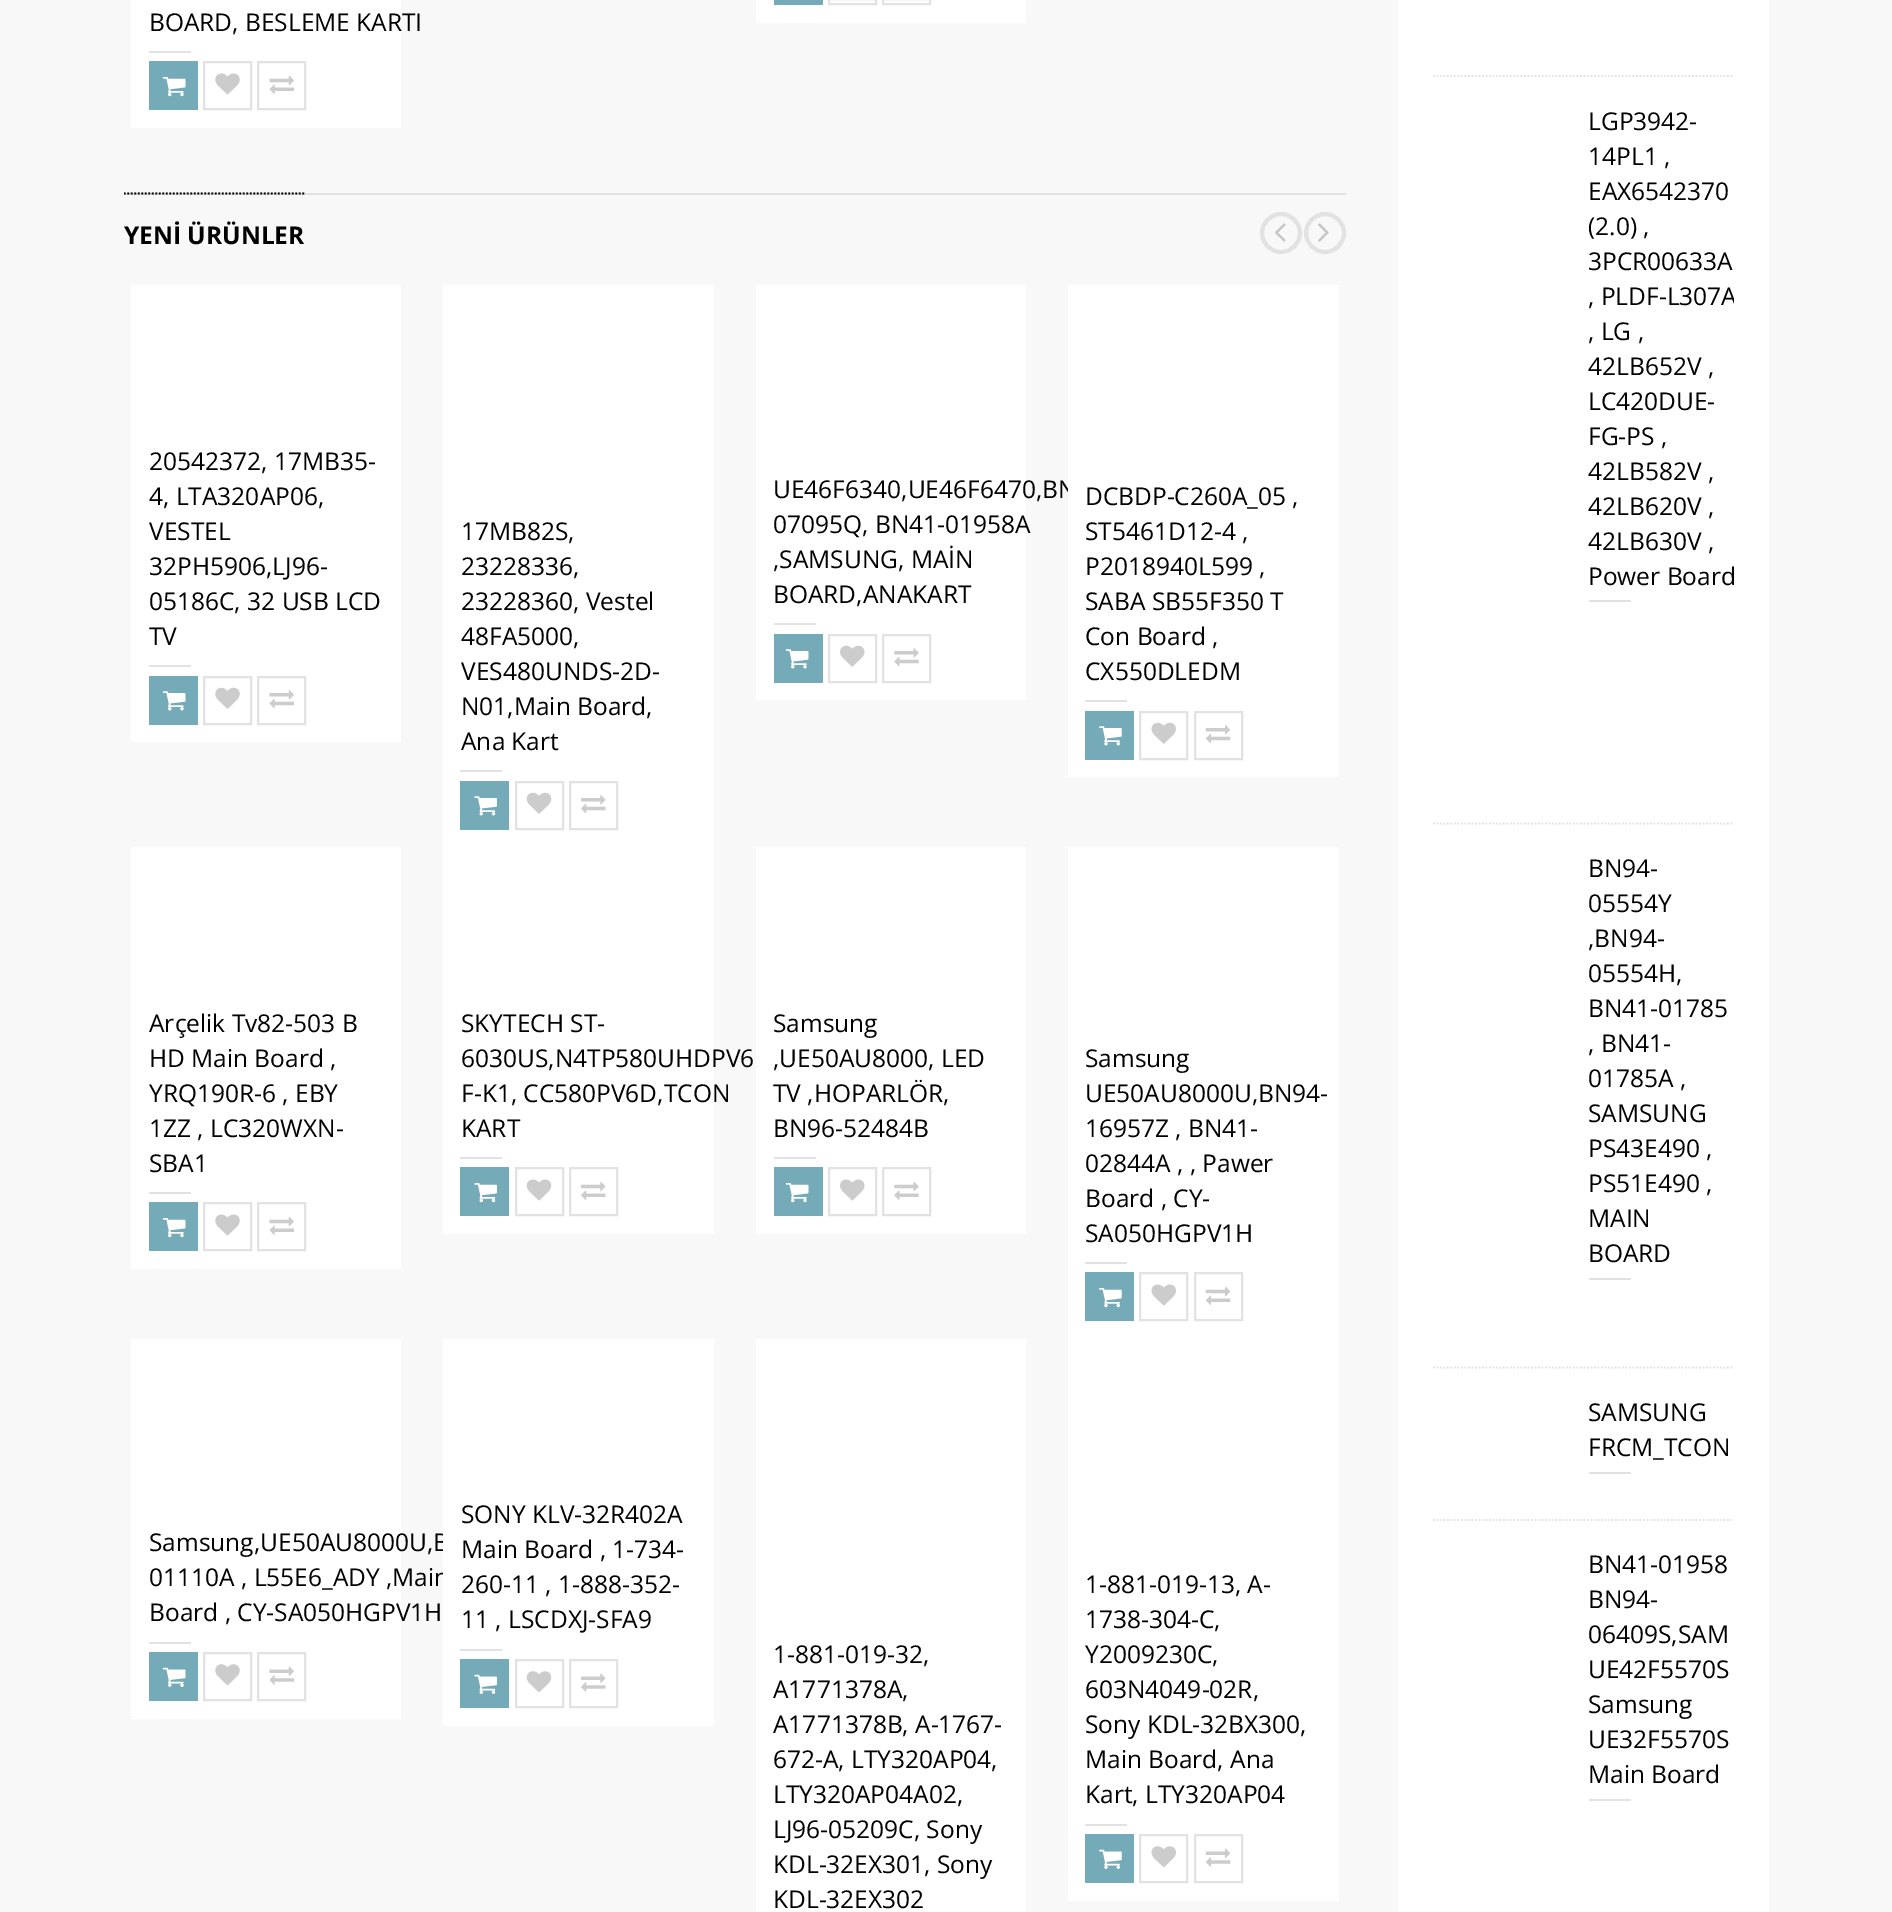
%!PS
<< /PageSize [1892 1912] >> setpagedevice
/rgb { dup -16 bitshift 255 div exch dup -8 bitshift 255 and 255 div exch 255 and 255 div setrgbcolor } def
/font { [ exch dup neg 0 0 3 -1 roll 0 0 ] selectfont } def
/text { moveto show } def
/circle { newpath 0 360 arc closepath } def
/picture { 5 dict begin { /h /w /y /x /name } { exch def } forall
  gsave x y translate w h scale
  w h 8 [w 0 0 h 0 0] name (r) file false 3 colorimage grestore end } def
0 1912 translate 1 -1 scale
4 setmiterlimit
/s1 { /OpenSans-Regular 24.5 font 16#000000 rgb } def
/s2 { /OpenSans-Bold 24.5 font 16#000000 rgb } def
16#F8F8F8 rgb
0 0 1892 1912 rectfill
16#FFFFFF rgb
131 0 270 128 rectfill
s1
(BOARD, BESLEME KARTI) 149 31 text
16#E2E2E2 rgb
149 51 42 2 rectfill
16#75AAB8 rgb
149 61 49 49 rectfill
(pic1.raw) 162 77 24 20 picture
16#E2E2E2 rgb
2 setlinewidth
204 62 47 47 rectstroke
(pic2.raw) 215 73 25 22 picture
258 62 47 47 rectstroke
(pic3.raw) 269 75 25 19 picture
16#FFFFFF rgb
756 0 270 23 rectfill
16#75AAB8 rgb
774 0 49 5 rectfill
16#E2E2E2 rgb
829 -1 47 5 rectstroke
883 -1 47 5 rectstroke
124 193 1222 2 rectfill
16#000000 rgb
1.8 setlinewidth
[1.75 1.75] 0 setdash
124 193.5 moveto 304.5 193.5 lineto stroke
s2
(YENİ ÜRÜNLER) 124 244 text
16#E2E2E2 rgb
4 setlinewidth
[] 0 setdash
1281 233 19 circle stroke
(pic4.raw) 1275 223 11 19 picture
1325 233 19 circle stroke
(pic5.raw) 1318 223 11 19 picture
16#FFFFFF rgb
131 285 270 457 rectfill
s1
(20542372, 17MB35-) 149 470 text
(4, LTA320AP06,) 149 505 text
(VESTEL) 149 540 text
(32PH5906,LJ96-) 149 575 text
(05186C, 32 USB LCD) 149 610 text
(TV) 149 645 text
16#E2E2E2 rgb
149 665 42 2 rectfill
16#75AAB8 rgb
149 676 49 49 rectfill
(pic6.raw) 162 691 24 20 picture
16#E2E2E2 rgb
2 setlinewidth
204 677 47 47 rectstroke
(pic7.raw) 215 687 25 22 picture
258 677 47 47 rectstroke
(pic8.raw) 269 690 25 19 picture
16#FFFFFF rgb
443 285 271 949 rectfill
s1
(17MB82S,) 461 540 text
(23228336,) 461 575 text
(23228360, Vestel) 461 610 text
(48FA5000,) 461 645 text
(VES480UNDS-2D-) 461 680 text
(N01,Main Board,) 461 715 text
(Ana Kart) 461 750 text
16#E2E2E2 rgb
460 770 42 2 rectfill
16#75AAB8 rgb
460 781 49 49 rectfill
(pic9.raw) 474 796 23 20 picture
16#E2E2E2 rgb
516 782 47 47 rectstroke
(pic10.raw) 526 792 26 22 picture
570 782 47 47 rectstroke
(pic11.raw) 581 795 25 19 picture
16#FFFFFF rgb
756 285 270 415 rectfill
s1
(UE46F6340,UE46F6470,BN) 773 498 text
(07095Q, BN41-01958A) 773 533 text
(,SAMSUNG, MAİN) 773 568 text
(BOARD,ANAKART) 773 603 text
16#E2E2E2 rgb
774 623 42 2 rectfill
16#75AAB8 rgb
774 634 49 49 rectfill
(pic6.raw) 785 649 24 20 picture
16#E2E2E2 rgb
829 635 47 47 rectstroke
(pic12.raw) 840 645 25 22 picture
883 635 47 47 rectstroke
(pic13.raw) 894 648 25 19 picture
16#FFFFFF rgb
1068 285 271 492 rectfill
s1
(DCBDP-C260A_05 ,) 1085 505 text
(ST5461D12-4 ,) 1085 540 text
(P2018940L599 ,) 1085 575 text
(SABA SB55F350 T) 1085 610 text
(Con Board ,) 1085 645 text
(CX550DLEDM) 1085 680 text
16#E2E2E2 rgb
1085 700 42 2 rectfill
16#75AAB8 rgb
1085 711 49 49 rectfill
(pic14.raw) 1099 726 23 20 picture
16#E2E2E2 rgb
1140 712 47 47 rectstroke
(pic15.raw) 1151 722 25 22 picture
1195 712 47 47 rectstroke
(pic16.raw) 1205 725 26 19 picture
16#FFFFFF rgb
131 847 270 422 rectfill
s1
(Arçelik Tv82-503 B) 149 1032 text
(HD Main Board ,) 149 1067 text
(YRQ190R-6 , EBY) 149 1102 text
(1ZZ , LC320WXN-) 149 1137 text
(SBA1) 149 1172 text
16#E2E2E2 rgb
149 1192 42 2 rectfill
16#75AAB8 rgb
149 1202 49 49 rectfill
(pic1.raw) 162 1218 24 20 picture
16#E2E2E2 rgb
204 1203 47 47 rectstroke
(pic2.raw) 215 1214 25 22 picture
258 1203 47 47 rectstroke
(pic3.raw) 269 1216 25 19 picture
s1
(SKYTECH ST-) 461 1032 text
(6030US,N4TP580UHDPV6) 461 1067 text
(F-K1, CC580PV6D,TCON) 461 1102 text
(KART) 461 1137 text
16#E2E2E2 rgb
460 1157 42 2 rectfill
16#75AAB8 rgb
460 1167 49 49 rectfill
(pic17.raw) 474 1183 23 20 picture
16#E2E2E2 rgb
516 1168 47 47 rectstroke
(pic18.raw) 526 1179 26 22 picture
570 1168 47 47 rectstroke
(pic19.raw) 581 1181 25 19 picture
16#FFFFFF rgb
756 847 270 387 rectfill
s1
(Samsung) 773 1032 text
(,UE50AU8000, LED) 773 1067 text
(TV ,HOPARLÖR,) 773 1102 text
(BN96-52484B) 773 1137 text
16#E2E2E2 rgb
774 1157 42 2 rectfill
16#75AAB8 rgb
774 1167 49 49 rectfill
(pic1.raw) 785 1183 24 20 picture
16#E2E2E2 rgb
829 1168 47 47 rectstroke
(pic20.raw) 840 1179 25 22 picture
883 1168 47 47 rectstroke
(pic21.raw) 894 1181 25 19 picture
16#FFFFFF rgb
1068 847 271 1054 rectfill
s1
(Samsung) 1085 1067 text
(UE50AU8000U,BN94-) 1085 1102 text
(16957Z , BN41-) 1085 1137 text
(02844A , , Pawer) 1085 1172 text
(Board , CY-) 1085 1207 text
(SA050HGPV1H) 1085 1242 text
16#E2E2E2 rgb
1085 1262 42 2 rectfill
16#75AAB8 rgb
1085 1272 49 49 rectfill
(pic22.raw) 1099 1288 23 20 picture
16#E2E2E2 rgb
1140 1273 47 47 rectstroke
(pic23.raw) 1151 1284 25 22 picture
1195 1273 47 47 rectstroke
(pic24.raw) 1205 1286 26 19 picture
16#FFFFFF rgb
131 1339 270 380 rectfill
s1
(Samsung,UE50AU8000U,B) 149 1551 text
(01110A , L55E6_ADY ,Main) 149 1586 text
(Board , CY-SA050HGPV1H) 149 1621 text
16#E2E2E2 rgb
149 1642 42 2 rectfill
16#75AAB8 rgb
149 1652 49 49 rectfill
(pic25.raw) 162 1667 24 20 picture
16#E2E2E2 rgb
204 1653 47 47 rectstroke
(pic26.raw) 215 1664 25 22 picture
258 1653 47 47 rectstroke
(pic27.raw) 269 1666 25 19 picture
16#FFFFFF rgb
443 1339 271 387 rectfill
s1
(SONY KLV-32R402A) 461 1523 text
(Main Board , 1-734-) 461 1558 text
(260-11 , 1-888-352-) 461 1593 text
(11 , LSCDXJ-SFA9) 461 1628 text
16#E2E2E2 rgb
460 1649 42 2 rectfill
16#75AAB8 rgb
460 1659 49 49 rectfill
(pic28.raw) 474 1674 23 20 picture
16#E2E2E2 rgb
516 1660 47 47 rectstroke
(pic29.raw) 526 1671 26 21 picture
570 1660 47 47 rectstroke
(pic30.raw) 581 1673 25 19 picture
16#FFFFFF rgb
756 1339 270 573 rectfill
s1
(1-881-019-32,) 773 1663 text
(A1771378A,) 773 1698 text
(A1771378B, A-1767-) 773 1733 text
(672-A, LTY320AP04,) 773 1768 text
(LTY320AP04A02,) 773 1803 text
(LJ96-05209C, Sony) 773 1838 text
(KDL-32EX301, Sony) 773 1873 text
(KDL-32EX302) 773 1908 text
(1-881-019-13, A-) 1085 1593 text
(1738-304-C,) 1085 1628 text
(Y2009230C,) 1085 1663 text
(603N4049-02R,) 1085 1698 text
(Sony KDL-32BX300,) 1085 1733 text
(Main Board, Ana) 1085 1768 text
(Kart, LTY320AP04) 1085 1803 text
16#E2E2E2 rgb
1085 1824 42 2 rectfill
16#75AAB8 rgb
1085 1834 49 49 rectfill
(pic31.raw) 1099 1849 23 20 picture
16#E2E2E2 rgb
1140 1835 47 47 rectstroke
(pic32.raw) 1151 1846 25 22 picture
1195 1835 47 47 rectstroke
(pic33.raw) 1205 1848 26 19 picture
16#FFFFFF rgb
1398 0 371 1912 rectfill
16#E2E2E2 rgb
1.8 setlinewidth
[1.75 1.75] 0 setdash
1433 76 moveto 1734 76 lineto stroke
1433 823.5 moveto 1734 823.5 lineto stroke
s1
(LGP3942-) 1588 130 text
(14PL1 ,) 1588 165 text
(EAX6542370) 1588 200 text
(\(2.0\) ,) 1588 235 text
(3PCR00633A) 1588 270 text
gsave
1589 103 145 508 rectclip
(, PLDF-L307A) 1588 305 text
grestore
(, LG ,) 1588 340 text
(42LB652V ,) 1588 375 text
(LC420DUE-) 1588 410 text
(FG-PS ,) 1588 445 text
(42LB582V ,) 1588 480 text
(42LB620V ,) 1588 515 text
(42LB630V ,) 1588 550 text
(Power Board) 1588 585 text
16#E2E2E2 rgb
1589 600 42 2 rectfill
1433 1367.5 moveto 1734 1367.5 lineto stroke
s1
(BN94-) 1588 877 text
(05554Y) 1588 912 text
(,BN94-) 1588 947 text
(05554H,) 1588 982 text
(BN41-01785) 1588 1017 text
(, BN41-) 1588 1052 text
(01785A ,) 1588 1087 text
(SAMSUNG) 1588 1122 text
(PS43E490 ,) 1588 1157 text
(PS51E490 ,) 1588 1192 text
(MAIN) 1588 1227 text
(BOARD) 1588 1262 text
16#E2E2E2 rgb
1589 1278 42 2 rectfill
1433 1520 moveto 1734 1520 lineto stroke
s1
(SAMSUNG) 1588 1421 text
(FRCM_TCON) 1588 1456 text
16#E2E2E2 rgb
1589 1472 42 2 rectfill
s1
(BN41-01958) 1588 1573 text
(BN94-) 1588 1608 text
(06409S,SAM) 1588 1643 text
(UE42F5570S) 1588 1678 text
(Samsung) 1588 1713 text
(UE32F5570S) 1588 1748 text
(Main Board) 1588 1783 text
16#E2E2E2 rgb
1589 1799 42 2 rectfill
showpage
